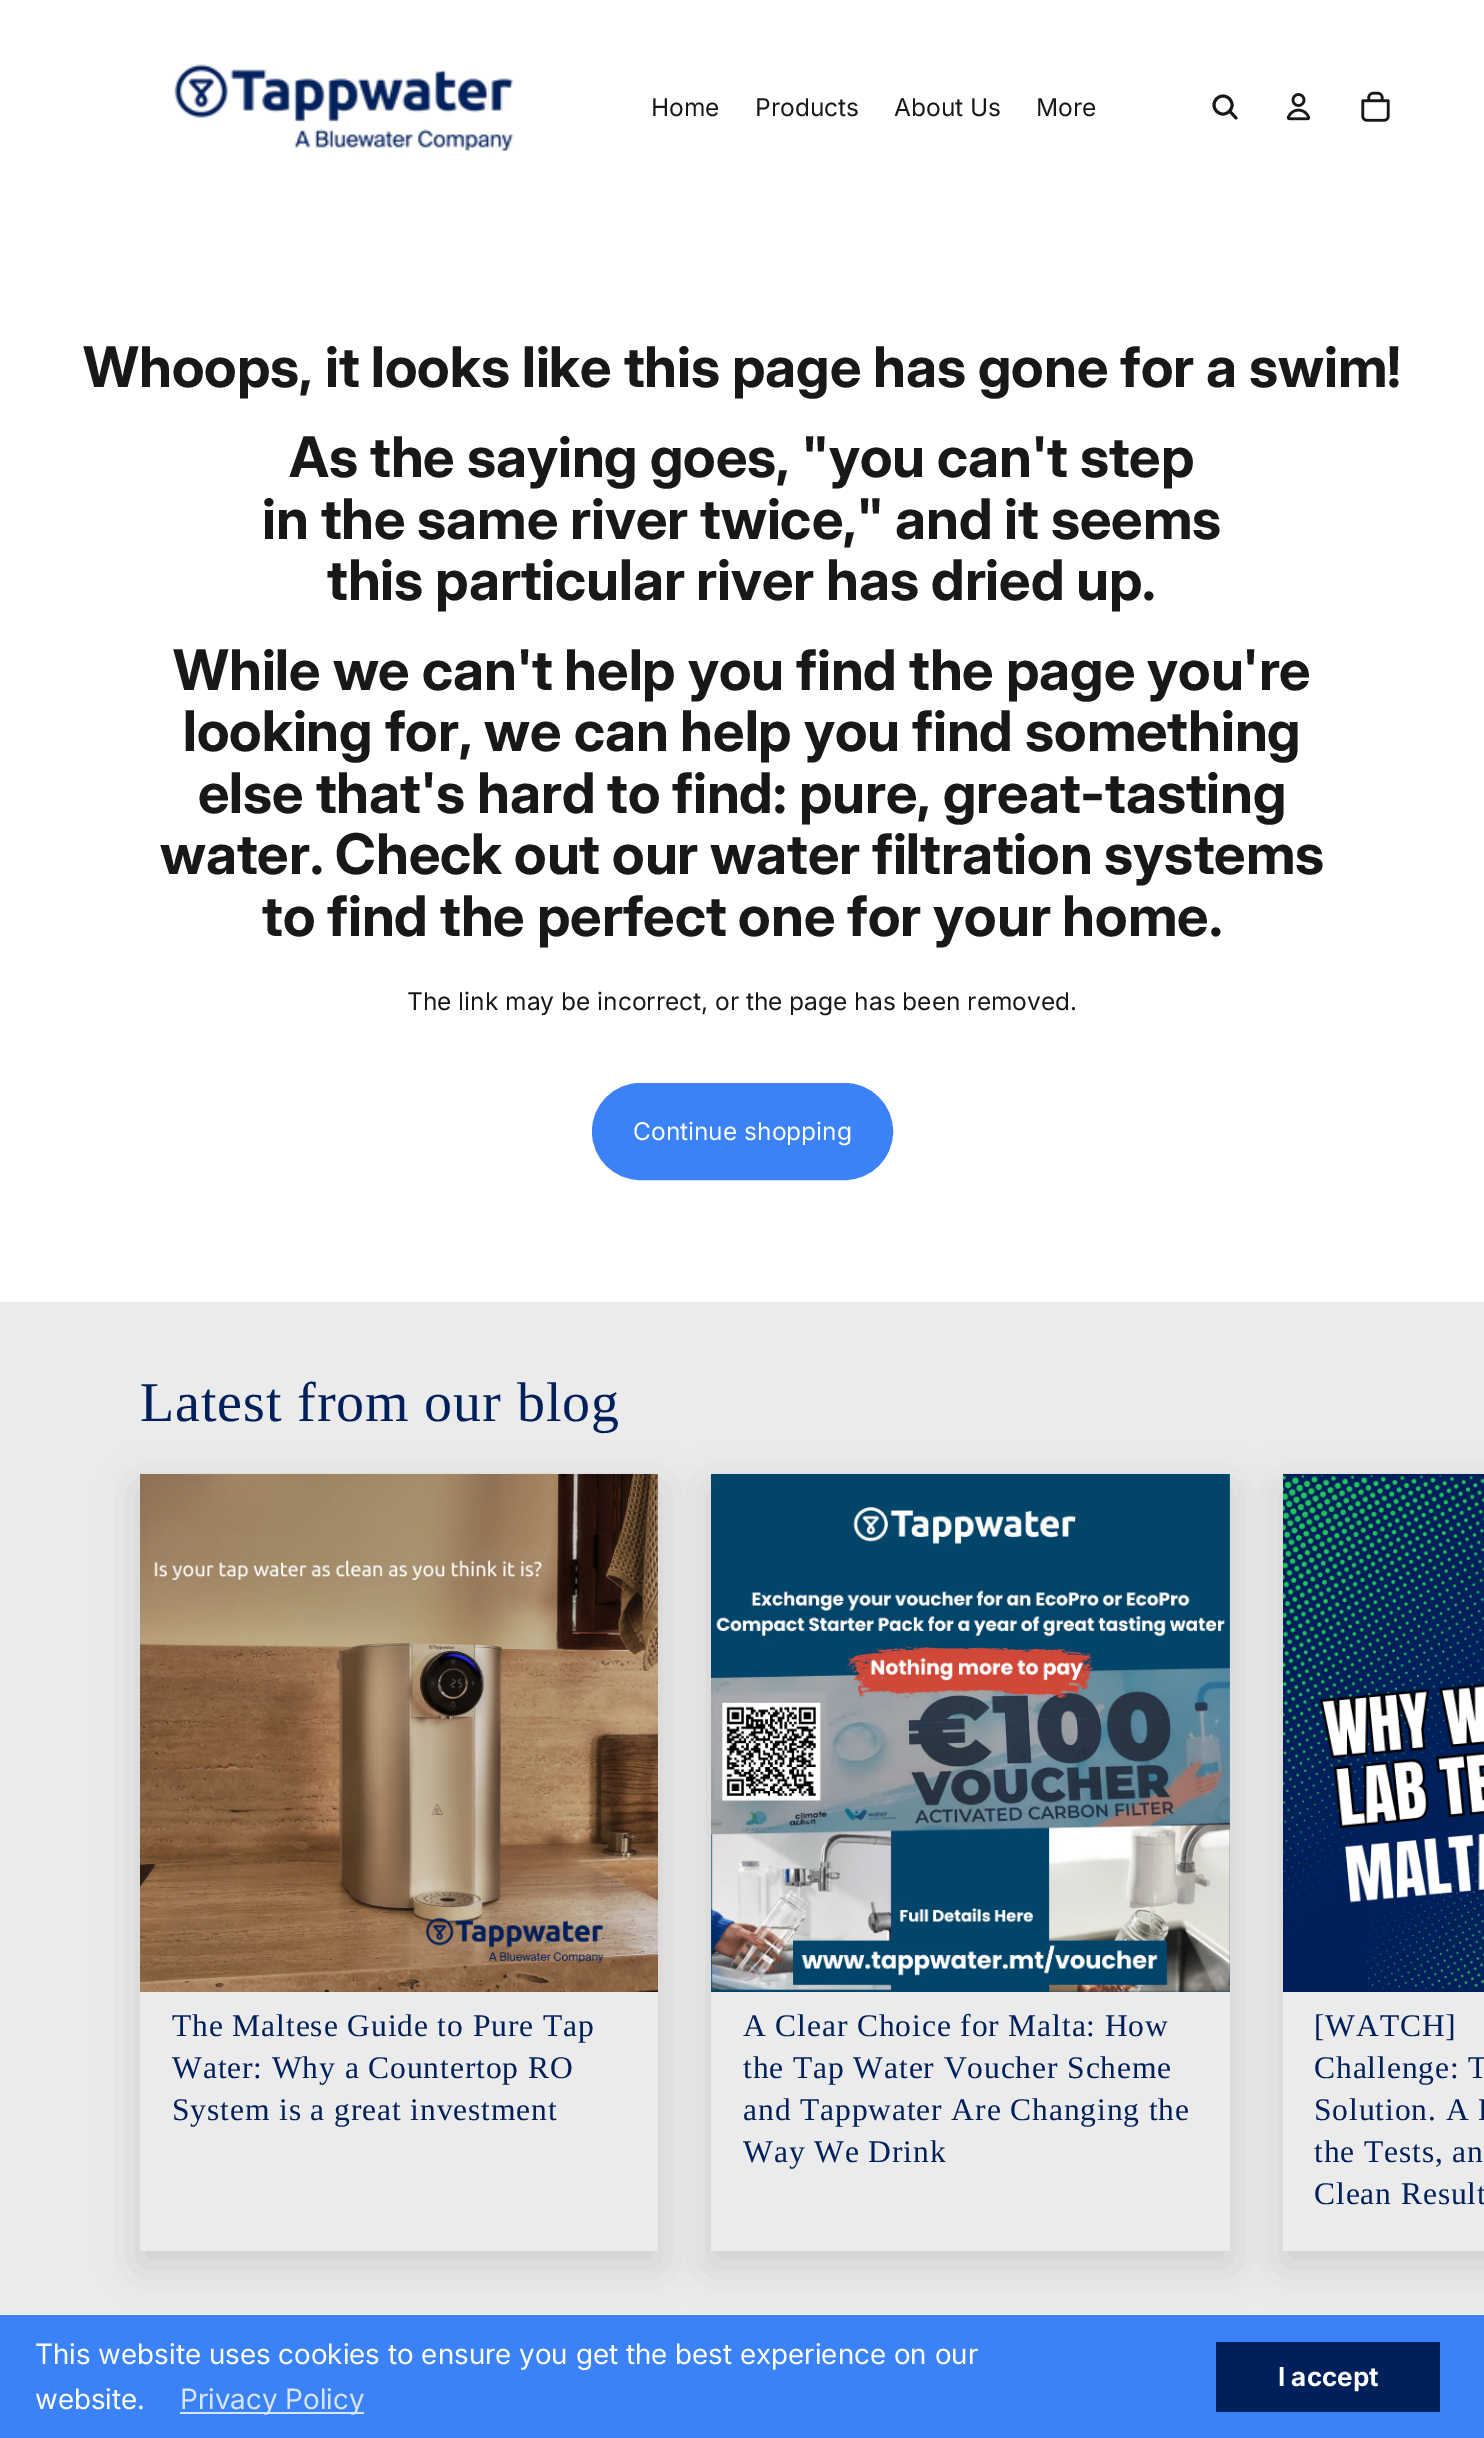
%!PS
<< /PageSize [1484 2438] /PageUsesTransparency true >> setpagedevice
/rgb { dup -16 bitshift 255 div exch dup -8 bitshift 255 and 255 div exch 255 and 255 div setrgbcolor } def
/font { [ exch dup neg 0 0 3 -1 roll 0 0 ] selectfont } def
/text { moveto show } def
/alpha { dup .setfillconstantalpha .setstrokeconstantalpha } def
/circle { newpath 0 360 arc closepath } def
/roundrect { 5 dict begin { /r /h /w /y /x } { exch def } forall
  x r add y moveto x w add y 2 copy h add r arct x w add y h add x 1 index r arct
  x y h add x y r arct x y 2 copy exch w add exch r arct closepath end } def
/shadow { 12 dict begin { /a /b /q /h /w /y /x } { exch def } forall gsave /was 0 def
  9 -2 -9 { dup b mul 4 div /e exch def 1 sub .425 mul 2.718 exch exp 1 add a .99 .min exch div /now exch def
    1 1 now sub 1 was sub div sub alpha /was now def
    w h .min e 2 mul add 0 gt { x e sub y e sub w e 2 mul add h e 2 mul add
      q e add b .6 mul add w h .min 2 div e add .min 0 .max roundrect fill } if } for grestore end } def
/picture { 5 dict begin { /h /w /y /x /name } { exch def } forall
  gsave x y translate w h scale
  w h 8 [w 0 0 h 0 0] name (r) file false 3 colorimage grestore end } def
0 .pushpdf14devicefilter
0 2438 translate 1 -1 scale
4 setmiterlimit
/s1 { /Inter-Regular 24.5 font 16#18181B rgb } def
/s2 { /Inter-Bold 56 font 16#18181B rgb } def
/s3 { /Inter-Regular 24.5 font 16#FFFFFF rgb } def
/s4 { /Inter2-Regular 28 font 16#FFFFFF rgb } def
/s5 { /Inter2-Regular 28 font 16#D8E6FD rgb } def
/s6 { /Inter2-Bold 26 font 16#FFFFFF rgb } def
16#FFFFFF rgb
0 0 1484 2438 rectfill
(pic1.raw) 174 64 340 87 picture
s1
(Home) 651 116 text
(Products) 755 116 text
(About Us) 894 116 text
(More) 1036 116 text
2.9 setlinewidth
1223 105 9 circle stroke
1 setlinecap
1 setlinejoin
1230 111.5 moveto 1236 118 lineto stroke
(pic2.raw) 1286 93 25 28 picture
(pic3.raw) 1361 91 29 31 picture
s2
(Whoops, it looks like this page has gone for a swim!) 83 387 text
(As the saying goes, "you can't step) 289 477 text
(in the same river twice," and it seems) 262 539 text
(this particular river has dried up.) 327 600 text
(While we can't help you find the page you're) 173 690 text
(looking for, we can help you find something) 183 751 text
(else that's hard to find: pure, great-tasting) 198 813 text
(water. Check out our water filtration systems) 160 874 text
(to find the perfect one for your home.) 262 936 text
s1
(The link may be incorrect, or the page has been removed.) 407 1010 text
16#3B82F6 rgb
595.5 1086.5 294 90 45 roundrect gsave fill grestore
7 setlinewidth
0 setlinecap
0 setlinejoin
stroke
s3
(Continue shopping) 633 1140 text
16#EBEBEB rgb
0 1302 1484 1012 rectfill
/LiberationSerif-Regular 56 font
16#00205B rgb
140 1421 moveto 0.9 0 (Latest from our blog) ashow
gsave
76 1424 moveto 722 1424 lineto 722 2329 lineto 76 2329 lineto closepath 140 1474 moveto 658 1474 lineto 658 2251 lineto 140 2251 lineto closepath eoclip newpath
16#000000 rgb
140 1488 518 777 0 21 0.12 shadow
grestore
(pic4.raw) 140 1474 518 518 picture
/LiberationSerif-Regular 31.5 font
172 2036 moveto 0.9 0 (The Maltese Guide to Pure Tap) ashow
172 2078 moveto 0.9 0 (Water: Why a Countertop RO) ashow
172 2120 moveto 0.9 0 (System is a great investment) ashow
gsave
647 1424 moveto 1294 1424 lineto 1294 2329 lineto 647 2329 lineto closepath 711 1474 moveto 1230 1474 lineto 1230 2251 lineto 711 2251 lineto closepath eoclip newpath
16#000000 rgb
711 1488 519 777 0 21 0.12 shadow
grestore
(pic5.raw) 711 1474 519 518 picture
743 2036 moveto 0.9 0 (A Clear Choice for Malta: How) ashow
743 2078 moveto 0.9 0 (the Tap Water Voucher Scheme) ashow
743 2120 moveto 0.9 0 (and Tappwater Are Changing the) ashow
743 2162 moveto 0.9 0 (Way We Drink) ashow
16#000000 rgb
1283 1488 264 777 0 21 0.12 shadow
(pic6.raw) 1283 1474 201 518 picture
16#EBEBEB rgb
1283 1992 201 259 rectfill
16#00205B rgb
1314 2036 moveto 0.9 0 ([WATCH]) ashow
1314 2078 moveto 0.9 0 (Challenge: T) ashow
1314 2120 moveto 0.9 0 (Solution. A L) ashow
1314 2162 moveto 0.9 0 (the Tests, an) ashow
1314 2204 moveto 0.9 0 (Clean Result) ashow
16#FAFAFA rgb
0 2314 1484 1 rectfill
16#EBEBEB rgb
1414 2314 moveto 1414 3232 lineto 1412 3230 lineto 1412 2314 lineto closepath fill
16#3B82F6 rgb
0 2315 1484 123 rectfill
s4
(This website uses cookies to ensure you get the best experience on our) 35 2364 text
(website.) 35 2409 text
16#D8E6FD rgb
180 2412 184 2 rectfill
(Privacy Policy) 180 2409 text
16#00205B rgb
1216 2342 224 70 rectfill
s6
(I accept) 1278 2386 text
.poppdf14devicefilter showpage
